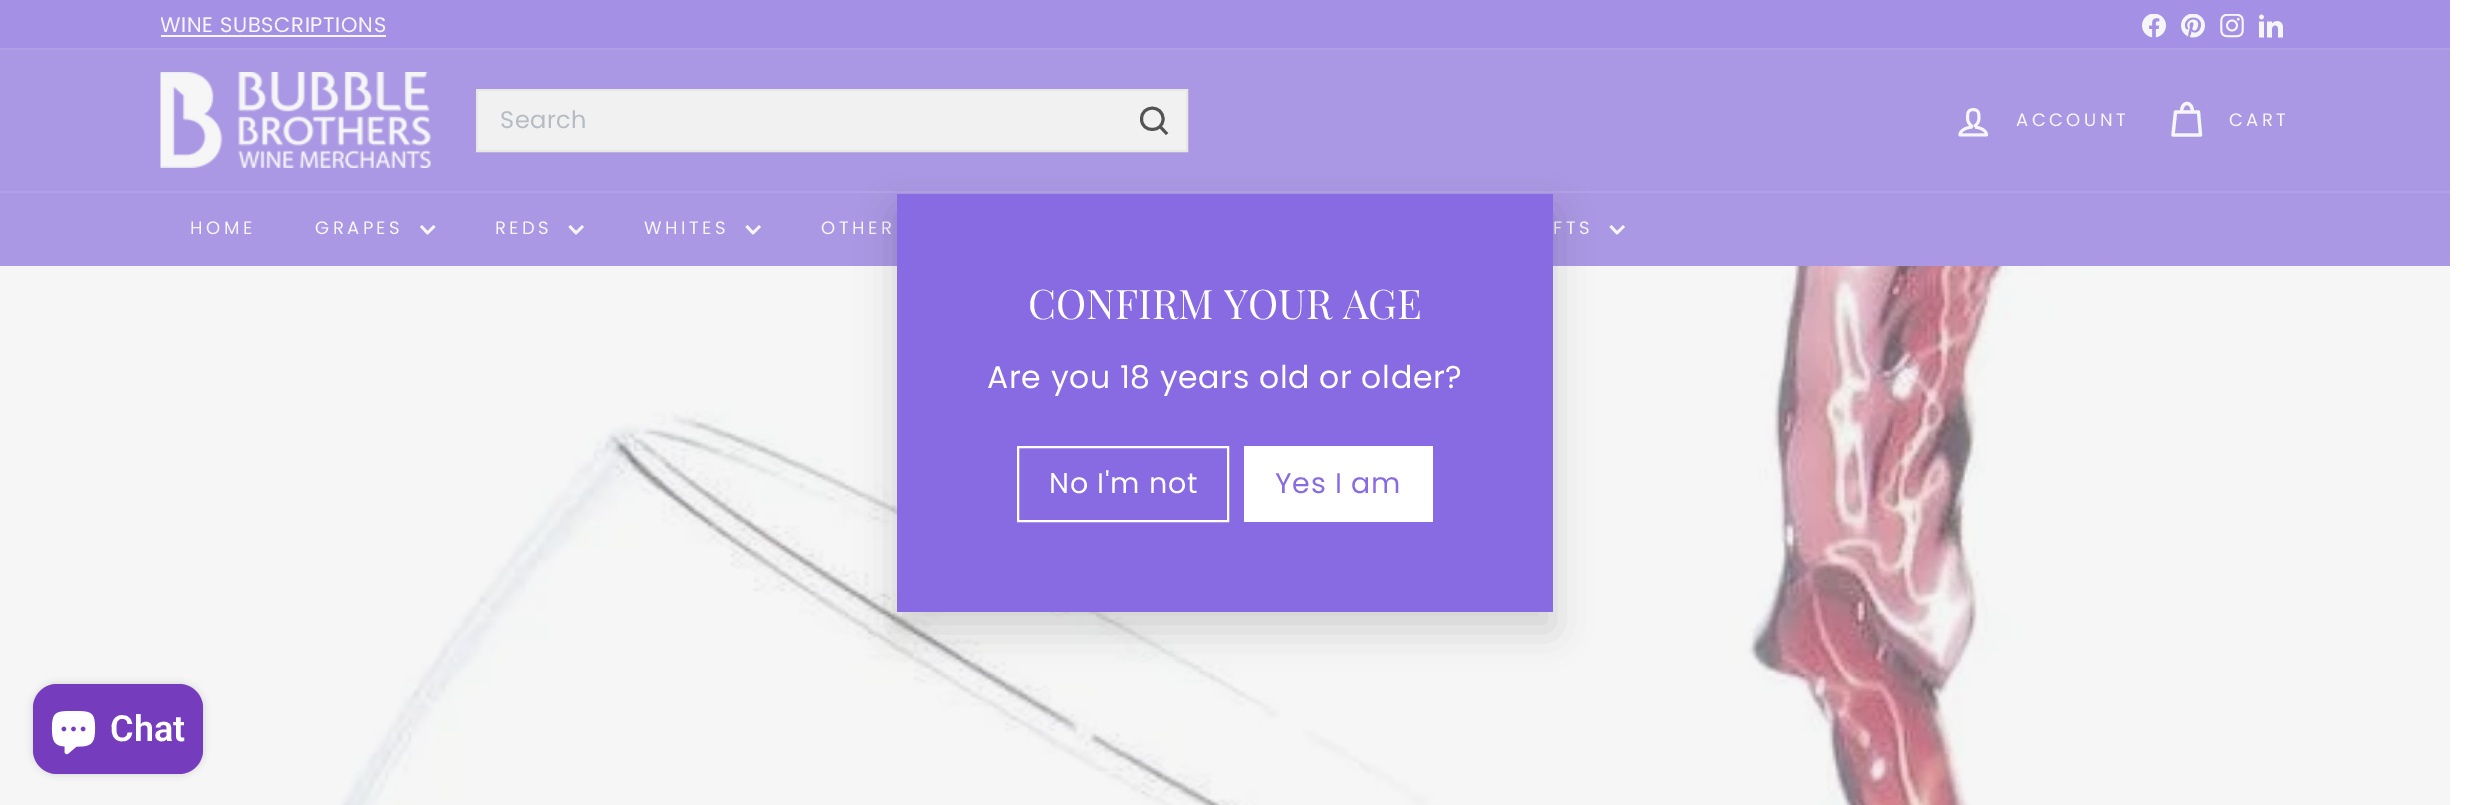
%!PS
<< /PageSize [2472 805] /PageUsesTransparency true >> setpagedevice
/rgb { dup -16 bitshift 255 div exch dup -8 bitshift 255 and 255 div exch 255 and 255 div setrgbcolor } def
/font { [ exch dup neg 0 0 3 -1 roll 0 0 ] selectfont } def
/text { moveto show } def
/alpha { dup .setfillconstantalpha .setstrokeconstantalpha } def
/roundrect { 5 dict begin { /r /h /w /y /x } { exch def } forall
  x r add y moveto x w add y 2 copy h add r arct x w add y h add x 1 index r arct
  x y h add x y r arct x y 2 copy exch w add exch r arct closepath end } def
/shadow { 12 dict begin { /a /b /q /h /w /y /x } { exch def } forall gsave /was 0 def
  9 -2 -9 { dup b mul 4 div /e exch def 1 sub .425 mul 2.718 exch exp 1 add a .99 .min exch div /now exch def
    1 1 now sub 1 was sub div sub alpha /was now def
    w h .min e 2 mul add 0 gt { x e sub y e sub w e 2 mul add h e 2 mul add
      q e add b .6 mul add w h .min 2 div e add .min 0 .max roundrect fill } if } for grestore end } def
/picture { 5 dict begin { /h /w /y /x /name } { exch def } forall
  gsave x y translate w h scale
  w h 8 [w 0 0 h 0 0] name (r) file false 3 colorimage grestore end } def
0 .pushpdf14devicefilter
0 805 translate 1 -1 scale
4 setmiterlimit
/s1 { /PlayfairDisplay-Regular 40.75 font 16#FFFFFF rgb } def
/s2 { /Roboto-SemiBold 36 font 16#FFFFFF rgb } def
16#FFFFFF rgb
0 0 2472 805 rectfill
16#F6F6F6 rgb
0 266 2450 539 rectfill
(pic1.raw) 339 266 1789 539 picture
16#A490E4 rgb
0 0 2450 48 rectfill
gsave
161 9 1959 32 rectclip
/Poppins-Regular 21 font
16#F6F6F6 rgb
160 32 moveto 0.65 0 (WINE SUBSCRIPTIONS) ashow
grestore
16#F6F6F6 rgb
161 35 225 2 rectfill
(pic2.raw) 2142 14 24 24 picture
(pic3.raw) 2181 14 24 24 picture
(pic4.raw) 2220 14 24 24 picture
(pic5.raw) 2259 14 24 24 picture
16#B19FE6 rgb
0 48 2450 2 rectfill
16#AA98E4 rgb
0 50 2450 141 rectfill
(pic6.raw) 160 72 271 96 picture
16#F1F1F1 rgb
477 90 moveto 1187 90 lineto 1187 151 lineto 477 151 lineto closepath gsave fill grestore
16#E8E8E3 rgb
2 setlinewidth
stroke
/Poppins-Regular 24 font
16#B7BBC3 rgb
500 128 moveto 0.5 0 (Search) ashow
16#535353 rgb
2.9 setlinewidth
1 setlinejoin
1163 119 moveto 1163 133 1141.5 133 1141.5 119 curveto 1141.5 104.5 1163 104.5 1163 119 curveto 1167 134 moveto 1160 126.5 lineto stroke
(pic7.raw) 1958 108 31 29 picture
/Poppins-Regular 18 font
16#F6F6F6 rgb
2016 126 moveto 3.5 0 (ACCOUNT) ashow
3.2 setlinewidth
2181.5 112 moveto 2181.5 100.5 2192.5 100.5 2192.5 112 curveto 2175.5 112 moveto 2198.5 112 lineto 2200.5 135 lineto 2173 135 lineto closepath stroke
2229 126 moveto 3.5 0 (CART) ashow
16#AA98E4 rgb
0 193 2450 73 rectfill
16#B2A1E6 rgb
0 191 2450 2 rectfill
16#F6F6F6 rgb
190 234 moveto 3.5 0 (HOME) ashow
315 234 moveto 3.5 0 (GRAPES) ashow
2.7 setlinewidth
421 226 moveto 427.5 233 lineto 434.5 226 lineto stroke
495 234 moveto 3.5 0 (REDS) ashow
569.5 226 moveto 576 233 lineto 583 226 lineto stroke
644 234 moveto 3.5 0 (WHITES) ashow
746.5 226 moveto 753 233 lineto 760 226 lineto stroke
821 234 moveto 3.5 0 (OTHER) ashow
1553 234 moveto 3.5 0 (FTS) ashow
1610.5 226 moveto 1617 233 lineto 1624 226 lineto stroke
16#000000 rgb
897 212 656 418 0 19 0.15 shadow
16#886BE2 rgb
897 194 656 418 rectfill
s1
(CONFIRM YOUR AGE) 1028 319 text
/Poppins-Regular 31.5 font
987 388 moveto 0.65 0 (Are you 18 years old or older?) ashow
2 setlinewidth
0 setlinejoin
1018 447 210 74 rectstroke
/Poppins-Regular 28.5 font
1049 493 moveto 0.75 0 (No I'm not) ashow
1244 446 189 76 rectfill
16#886BE2 rgb
1275 493 moveto 0.75 0 (Yes I am) ashow
16#000000 rgb
33 684 170 90 24 4 0.15 shadow
16#753CBD rgb
33 684 170 90 24 roundrect fill
(pic8.raw) 51 711 45 44 picture
s2
(Chat) 110 741 text
.poppdf14devicefilter showpage
